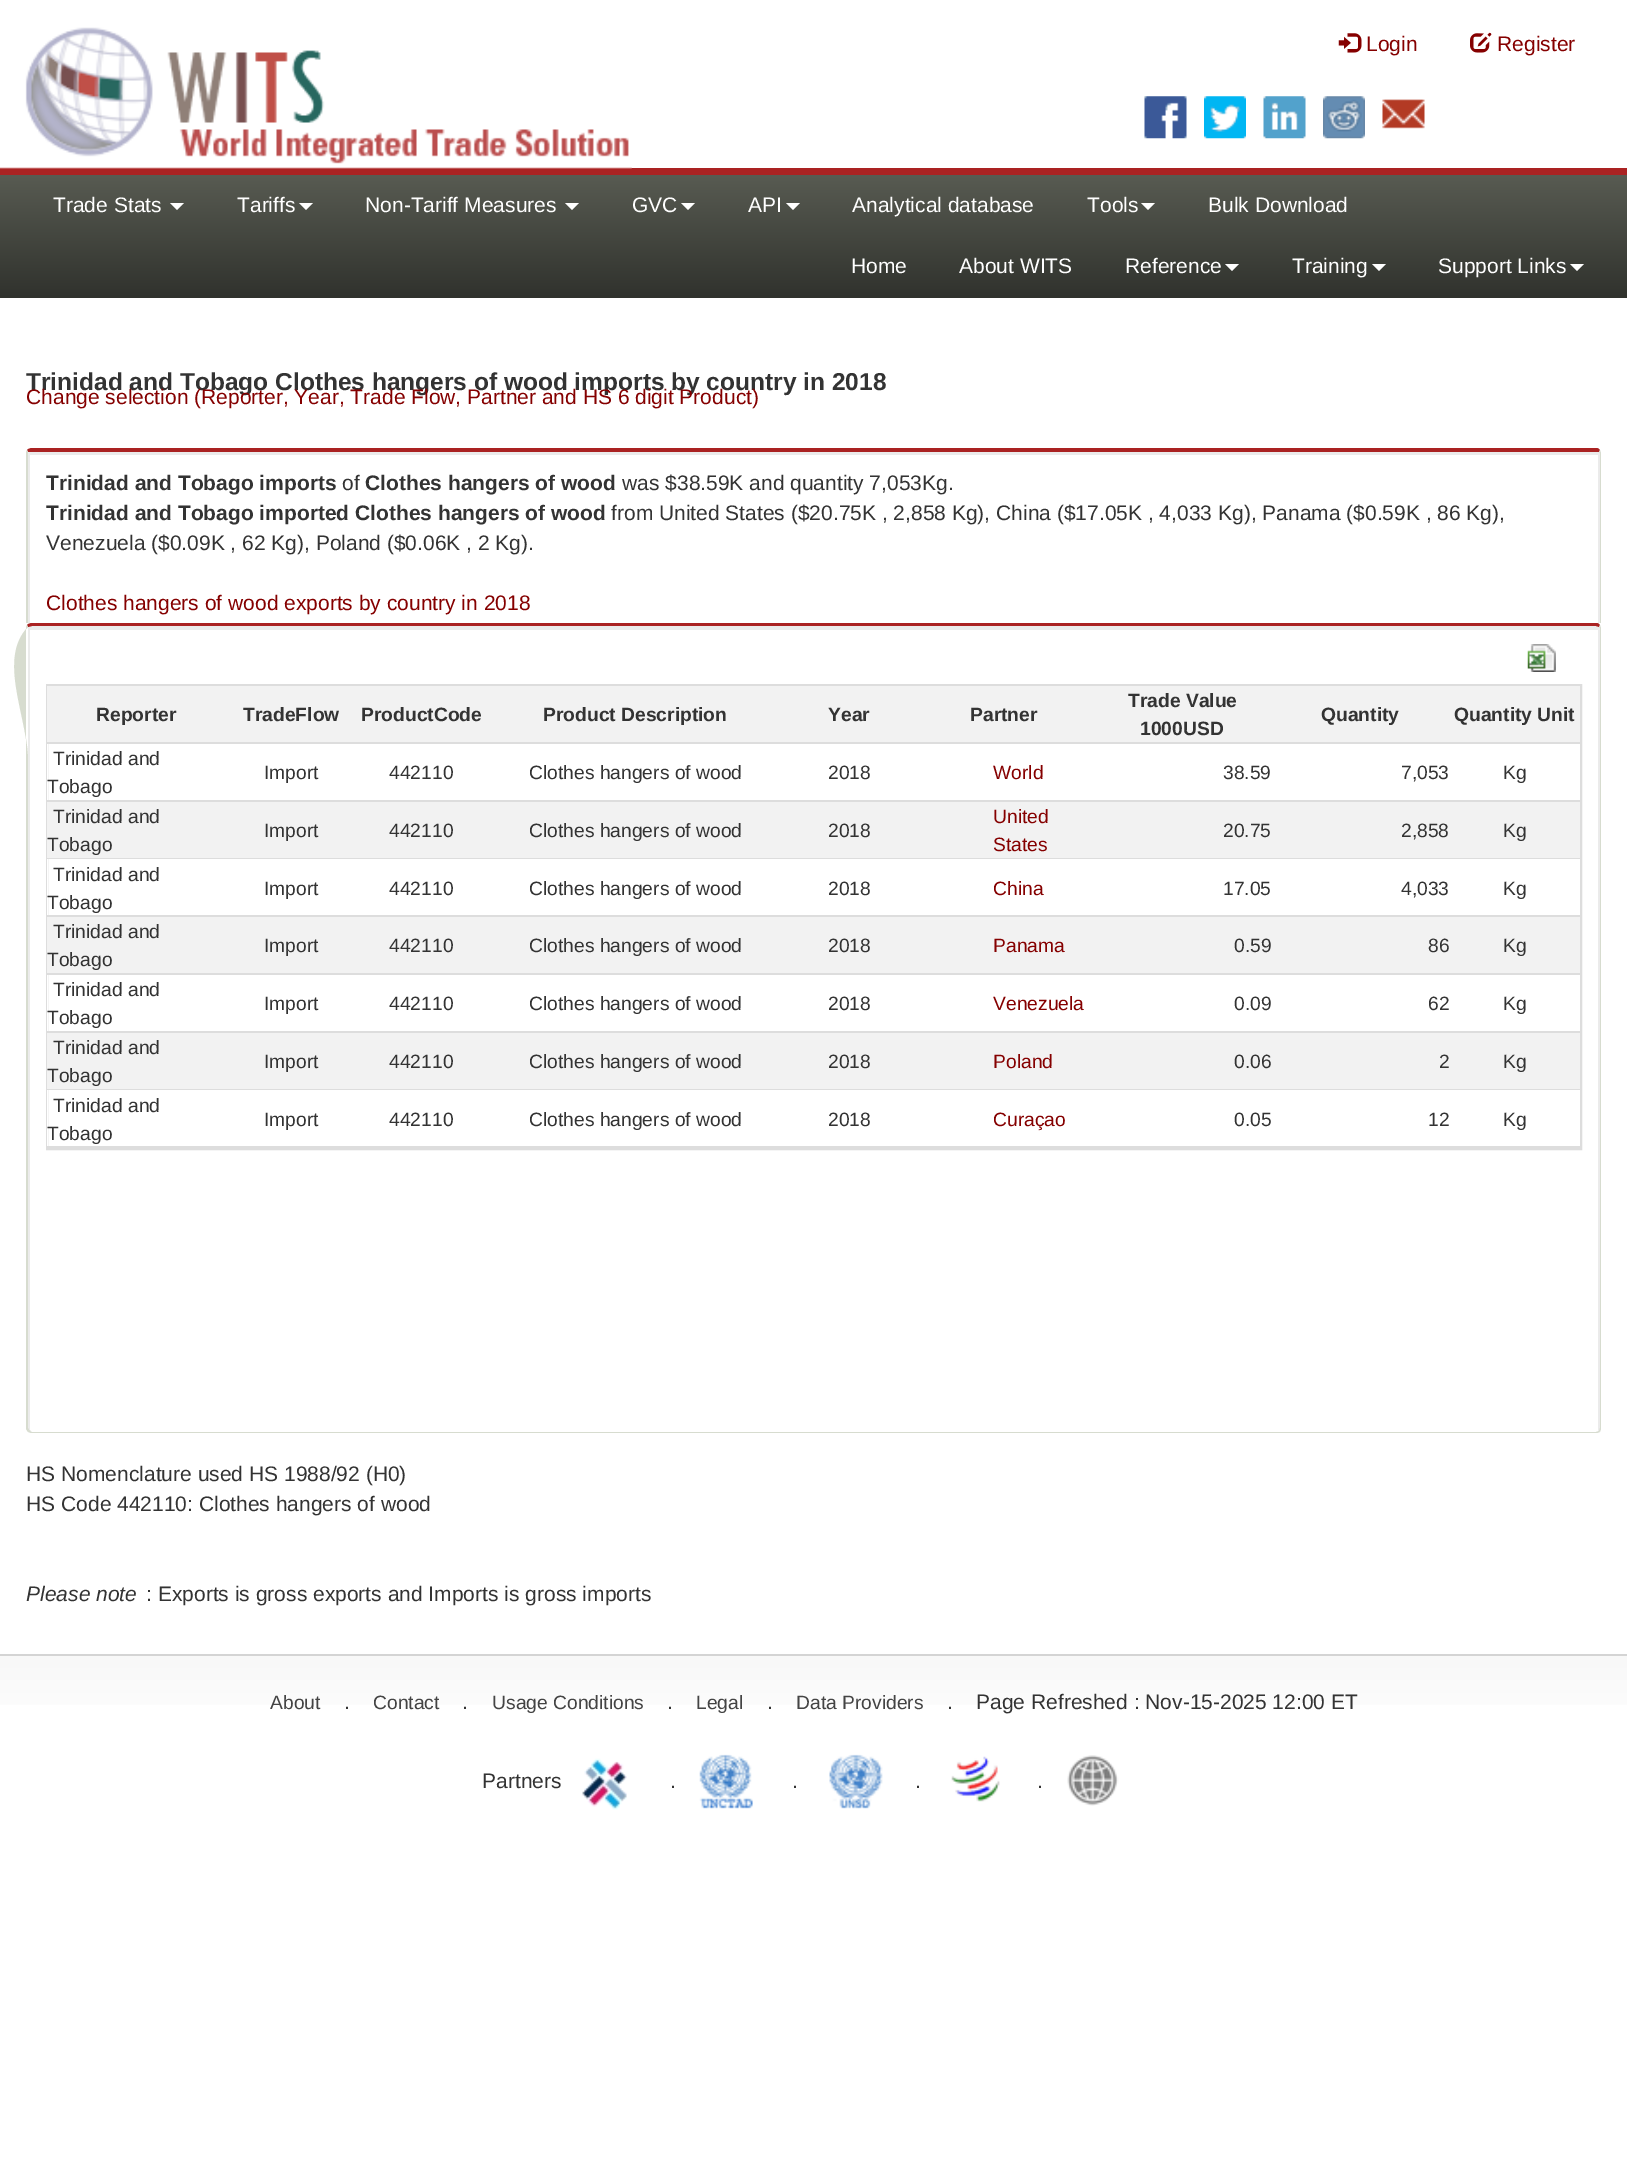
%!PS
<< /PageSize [1627 2167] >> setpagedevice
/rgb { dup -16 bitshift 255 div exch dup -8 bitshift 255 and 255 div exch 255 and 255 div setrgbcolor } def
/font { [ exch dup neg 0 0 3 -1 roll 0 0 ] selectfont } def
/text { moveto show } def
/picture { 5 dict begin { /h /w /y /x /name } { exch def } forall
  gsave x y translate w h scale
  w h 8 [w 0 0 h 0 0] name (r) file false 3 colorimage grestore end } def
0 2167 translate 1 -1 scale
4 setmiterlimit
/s1 { /LiberationSans-Regular 21 font 16#850000 rgb } def
/s2 { /LiberationSans-Regular 21 font 16#FFFFFF rgb } def
/s3 { /LiberationSans-Bold 24.5 font 16#333333 rgb } def
/s4 { /LiberationSans-Bold 21 font 16#333333 rgb } def
/s5 { /LiberationSans-Regular 21 font 16#333333 rgb } def
/s6 { /LiberationSans-Bold 19.25 font 16#333333 rgb } def
/s7 { /LiberationSans-Regular 19.25 font 16#333333 rgb } def
/s8 { /LiberationSans-Regular 19.25 font 16#850000 rgb } def
/s9 { /LiberationSans-Italic 21 font 16#333333 rgb } def
/s10 { /LiberationSans-Regular 19.25 font 16#444444 rgb } def
16#FFFFFF rgb
0 0 1627 2167 rectfill
16#AA2222 rgb
0 168 1627 7 rectfill
(pic1.raw) 0 27 632 142 picture
(pic2.raw) 1338 33 24 20 picture
s1
(Login) 1366 51 text
(pic3.raw) 1470 32 22 21 picture
(Register) 1497 51 text
(pic4.raw) 1144 96 43 43 picture
(pic5.raw) 1204 96 42 43 picture
(pic6.raw) 1263 96 43 43 picture
(pic7.raw) 1323 96 42 43 picture
(pic8.raw) 1382 99 43 30 picture
gsave 0 175 moveto 1627 175 lineto 1627 298 lineto 0 298 lineto closepath clip newpath
<< /ShadingType 2 /ColorSpace /DeviceRGB /Coords [814 175 814 298] /Extend [true true] /Function << /FunctionType 2 /Domain [0 1] /C0 [0.345 0.357 0.322] /C1 [0.188 0.196 0.176] /N 1 >> >> shfill grestore
s2
(Trade Stats) 53 212 text
170 203 moveto 184 203 lineto 177 210 lineto closepath fill
(Tariffs) 237 212 text
299 203 moveto 313 203 lineto 306 210 lineto closepath fill
(Non-Tariff Measures) 365 212 text
565 203 moveto 579 203 lineto 572 210 lineto closepath fill
(GVC) 632 212 text
681 203 moveto 695 203 lineto 688 210 lineto closepath fill
(API) 748 212 text
786 203 moveto 800 203 lineto 793 210 lineto closepath fill
(Analytical database) 852 212 text
(Tools) 1087 212 text
1141 203 moveto 1155 203 lineto 1148 210 lineto closepath fill
(Bulk Download) 1208 212 text
(Home) 851 273 text
(About WITS) 959 273 text
(Reference) 1125 273 text
1225 264 moveto 1239 264 lineto 1232 271 lineto closepath fill
(Training) 1292 273 text
1372 264 moveto 1386 264 lineto 1379 271 lineto closepath fill
(Support Links) 1438 273 text
1570 264 moveto 1584 264 lineto 1577 271 lineto closepath fill
s3
(Trinidad and Tobago Clothes hangers of wood imports by country in 2018) 26 390 text
s1
(Change selection \(Reporter, Year, Trade Flow, Partner and HS 6 digit Product\)) 26 404 text
16#EBEBEB rgb
32 452 moveto 30 452 28 452 28 453 curveto 28 705 lineto 28 707 29 709 31 709 curveto 30 707 lineto 30 455 lineto 1598 455 lineto 1598 707 lineto 1597 709 lineto 1599 708 1600 707 1600 705 curveto 1600 453 lineto 1600 452 1598 452 1596 452 curveto closepath fill
16#AA2222 rgb
32 448 moveto 30 448 28 449 27 450 curveto 28 452 lineto 32 452 lineto 1599 452 lineto 1600 450 lineto 1599 449 1598 448 1596 448 curveto closepath fill
16#D7DCCF rgb
1600 450 moveto 1601 453 lineto 1601 663 lineto 1601 707 lineto 1599 709 lineto 1599 708 lineto 1600 705 lineto 1600 453 lineto 1599 452 lineto closepath fill
26 452 moveto 27 450 lineto 28 452 lineto 28 705 lineto 29 708 lineto 28 709 lineto 26 706 lineto closepath fill
s4
(Trinidad and Tobago imports) 46 490 text
s5
(of) 342 490 text
s4
(Clothes hangers of wood) 365 490 text
s5
(was $38.59K and quantity 7,053Kg.) 622 490 text
s4
(Trinidad and Tobago imported Clothes hangers of wood) 46 520 text
s5
(from United States \($20.75K , 2,858 Kg\), China \($17.05K , 4,033 Kg\), Panama \($0.59K , 86 Kg\),) 611 520 text
(Venezuela \($0.09K , 62 Kg\), Poland \($0.06K , 2 Kg\).) 46 550 text
s1
(Clothes hangers of wood exports by country in 2018) 46 610 text
16#FFFFFF rgb
26 623 1575 86 rectfill
16#EBEBEB rgb
32 626 moveto 30 626 28 627 28 628 curveto 28 1428 lineto 28 1430 29 1431 31 1431 curveto 30 1430 lineto 30 630 lineto 1598 630 lineto 1598 1430 lineto 1598 1431 lineto 1599 1431 1600 1429 1600 1428 curveto 1600 628 lineto 1600 627 1598 626 1596 626 curveto closepath fill
16#AA2222 rgb
32 623 moveto 30 623 28 624 27 625 curveto 28 627 lineto 32 626 lineto 1596 626 lineto 1599 627 lineto 1600 625 lineto 1599 624 1598 623 1596 623 curveto closepath fill
16#D7DCCF rgb
1600 625 moveto 1601 628 lineto 1601 1428 lineto 1601 1430 1600 1431 1600 1432 curveto 1599 1431 lineto 1600 1428 lineto 1600 628 lineto 1599 627 lineto closepath fill
1600 1432 moveto 1599 1432 1598 1433 1596 1433 curveto 32 1433 lineto 30 1433 29 1432 28 1432 curveto 29 1430 lineto 30 1431 31 1432 32 1432 curveto 1596 1432 lineto 1599 1431 lineto closepath fill
26 627 moveto 27 625 lineto 28 627 lineto -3 659 28 717 28 761 curveto 28 1428 lineto 29 1430 lineto 28 1432 lineto 26 1429 lineto closepath fill
(pic9.raw) 1527 644 29 28 picture
16#DDDDDD rgb
2 setlinewidth
47 685 1534 464 rectstroke
16#F2F2F2 rgb
47 686 1533 56 rectfill
16#DDDDDD rgb
47 742 1533 2 rectfill
s6
(Reporter) 96 721 text
(TradeFlow) 243 721 text
(ProductCode) 361 721 text
(Product Description) 543 721 text
(Year) 828 721 text
(Partner) 970 721 text
(Trade Value) 1128 707 text
(1000USD) 1140 735 text
(Quantity) 1321 721 text
(Quantity Unit) 1454 721 text
16#FFFFFF rgb
47 744 1 56 rectfill
16#DDDDDD rgb
47 800 1533 2 rectfill
s7
(Trinidad and) 53 765 text
(Tobago) 47 793 text
(Import) 264 779 text
(442110) 389 779 text
(Clothes hangers of wood) 529 779 text
(2018) 828 779 text
s8
(World) 993 779 text
s7
(38.59) 1223 779 text
(7,053) 1401 779 text
(Kg) 1503 779 text
16#F2F2F2 rgb
47 802 1533 56 rectfill
16#DDDDDD rgb
47 858 1533 1 rectfill
s7
(Trinidad and) 53 823 text
(Tobago) 47 851 text
(Import) 264 837 text
(442110) 389 837 text
(Clothes hangers of wood) 529 837 text
(2018) 828 837 text
s8
(United) 993 823 text
(States) 993 851 text
s7
(20.75) 1223 837 text
(2,858) 1401 837 text
(Kg) 1503 837 text
16#FFFFFF rgb
47 859 1 56 rectfill
16#DDDDDD rgb
47 915 1533 2 rectfill
s7
(Trinidad and) 53 881 text
(Tobago) 47 909 text
(Import) 264 895 text
(442110) 389 895 text
(Clothes hangers of wood) 529 895 text
(2018) 828 895 text
s8
(China) 993 895 text
s7
(17.05) 1223 895 text
(4,033) 1401 895 text
(Kg) 1503 895 text
16#F2F2F2 rgb
47 917 1533 56 rectfill
16#DDDDDD rgb
47 973 1533 2 rectfill
s7
(Trinidad and) 53 938 text
(Tobago) 47 966 text
(Import) 264 952 text
(442110) 389 952 text
(Clothes hangers of wood) 529 952 text
(2018) 828 952 text
s8
(Panama) 993 952 text
s7
(0.59) 1234 952 text
(86) 1428 952 text
(Kg) 1503 952 text
16#FFFFFF rgb
47 975 1 56 rectfill
16#DDDDDD rgb
47 1031 1533 2 rectfill
s7
(Trinidad and) 53 996 text
(Tobago) 47 1024 text
(Import) 264 1010 text
(442110) 389 1010 text
(Clothes hangers of wood) 529 1010 text
(2018) 828 1010 text
s8
(Venezuela) 993 1010 text
s7
(0.09) 1234 1010 text
(62) 1428 1010 text
(Kg) 1503 1010 text
16#F2F2F2 rgb
47 1033 1533 56 rectfill
16#DDDDDD rgb
47 1089 1533 1 rectfill
s7
(Trinidad and) 53 1054 text
(Tobago) 47 1082 text
(Import) 264 1068 text
(442110) 389 1068 text
(Clothes hangers of wood) 529 1068 text
(2018) 828 1068 text
s8
(Poland) 993 1068 text
s7
(0.06) 1234 1068 text
(2) 1439 1068 text
(Kg) 1503 1068 text
16#FFFFFF rgb
47 1090 1 56 rectfill
16#DDDDDD rgb
47 1146 1533 2 rectfill
s7
(Trinidad and) 53 1112 text
(Tobago) 47 1140 text
(Import) 264 1126 text
(442110) 389 1126 text
(Clothes hangers of wood) 529 1126 text
(2018) 828 1126 text
s8
(Curaçao) 993 1126 text
s7
(0.05) 1234 1126 text
(12) 1428 1126 text
(Kg) 1503 1126 text
s5
(HS Nomenclature used HS 1988/92 \(H0\)) 26 1481 text
(HS Code 442110: Clothes hangers of wood) 26 1511 text
s9
(Please note) 26 1601 text
s5
(: Exports is gross exports and Imports is gross imports) 146 1601 text
gsave 0 1656 moveto 1627 1656 lineto 1627 1705 lineto 0 1705 lineto closepath clip newpath
<< /ShadingType 2 /ColorSpace /DeviceRGB /Coords [814 1656 814 1733] /Extend [true true] /Function << /FunctionType 2 /Domain [0 1] /C0 [0.973 0.973 0.973] /C1 [1 1 1] /N 1 >> >> shfill grestore
16#D4D4D4 rgb
0 1654 1627 2 rectfill
s10
(About) 270 1709 text
s5
(.) 344 1709 text
s10
(Contact) 373 1709 text
s5
(.) 462 1709 text
s10
(Usage Conditions) 492 1709 text
s5
(.) 667 1709 text
s10
(Legal) 696 1709 text
s5
(.) 767 1709 text
s10
(Data Providers) 796 1709 text
s5
(.) 947 1709 text
(Page Refreshed : Nov-15-2025 12:00 ET) 976 1709 text
(Partners) 482 1788 text
(pic10.raw) 582 1758 45 52 picture
(.) 670 1788 text
(pic11.raw) 699 1754 54 55 picture
(.) 792 1788 text
(pic12.raw) 829 1754 54 55 picture
(.) 915 1788 text
(pic13.raw) 951 1756 49 46 picture
(.) 1037 1788 text
(pic14.raw) 1067 1755 52 51 picture
showpage
